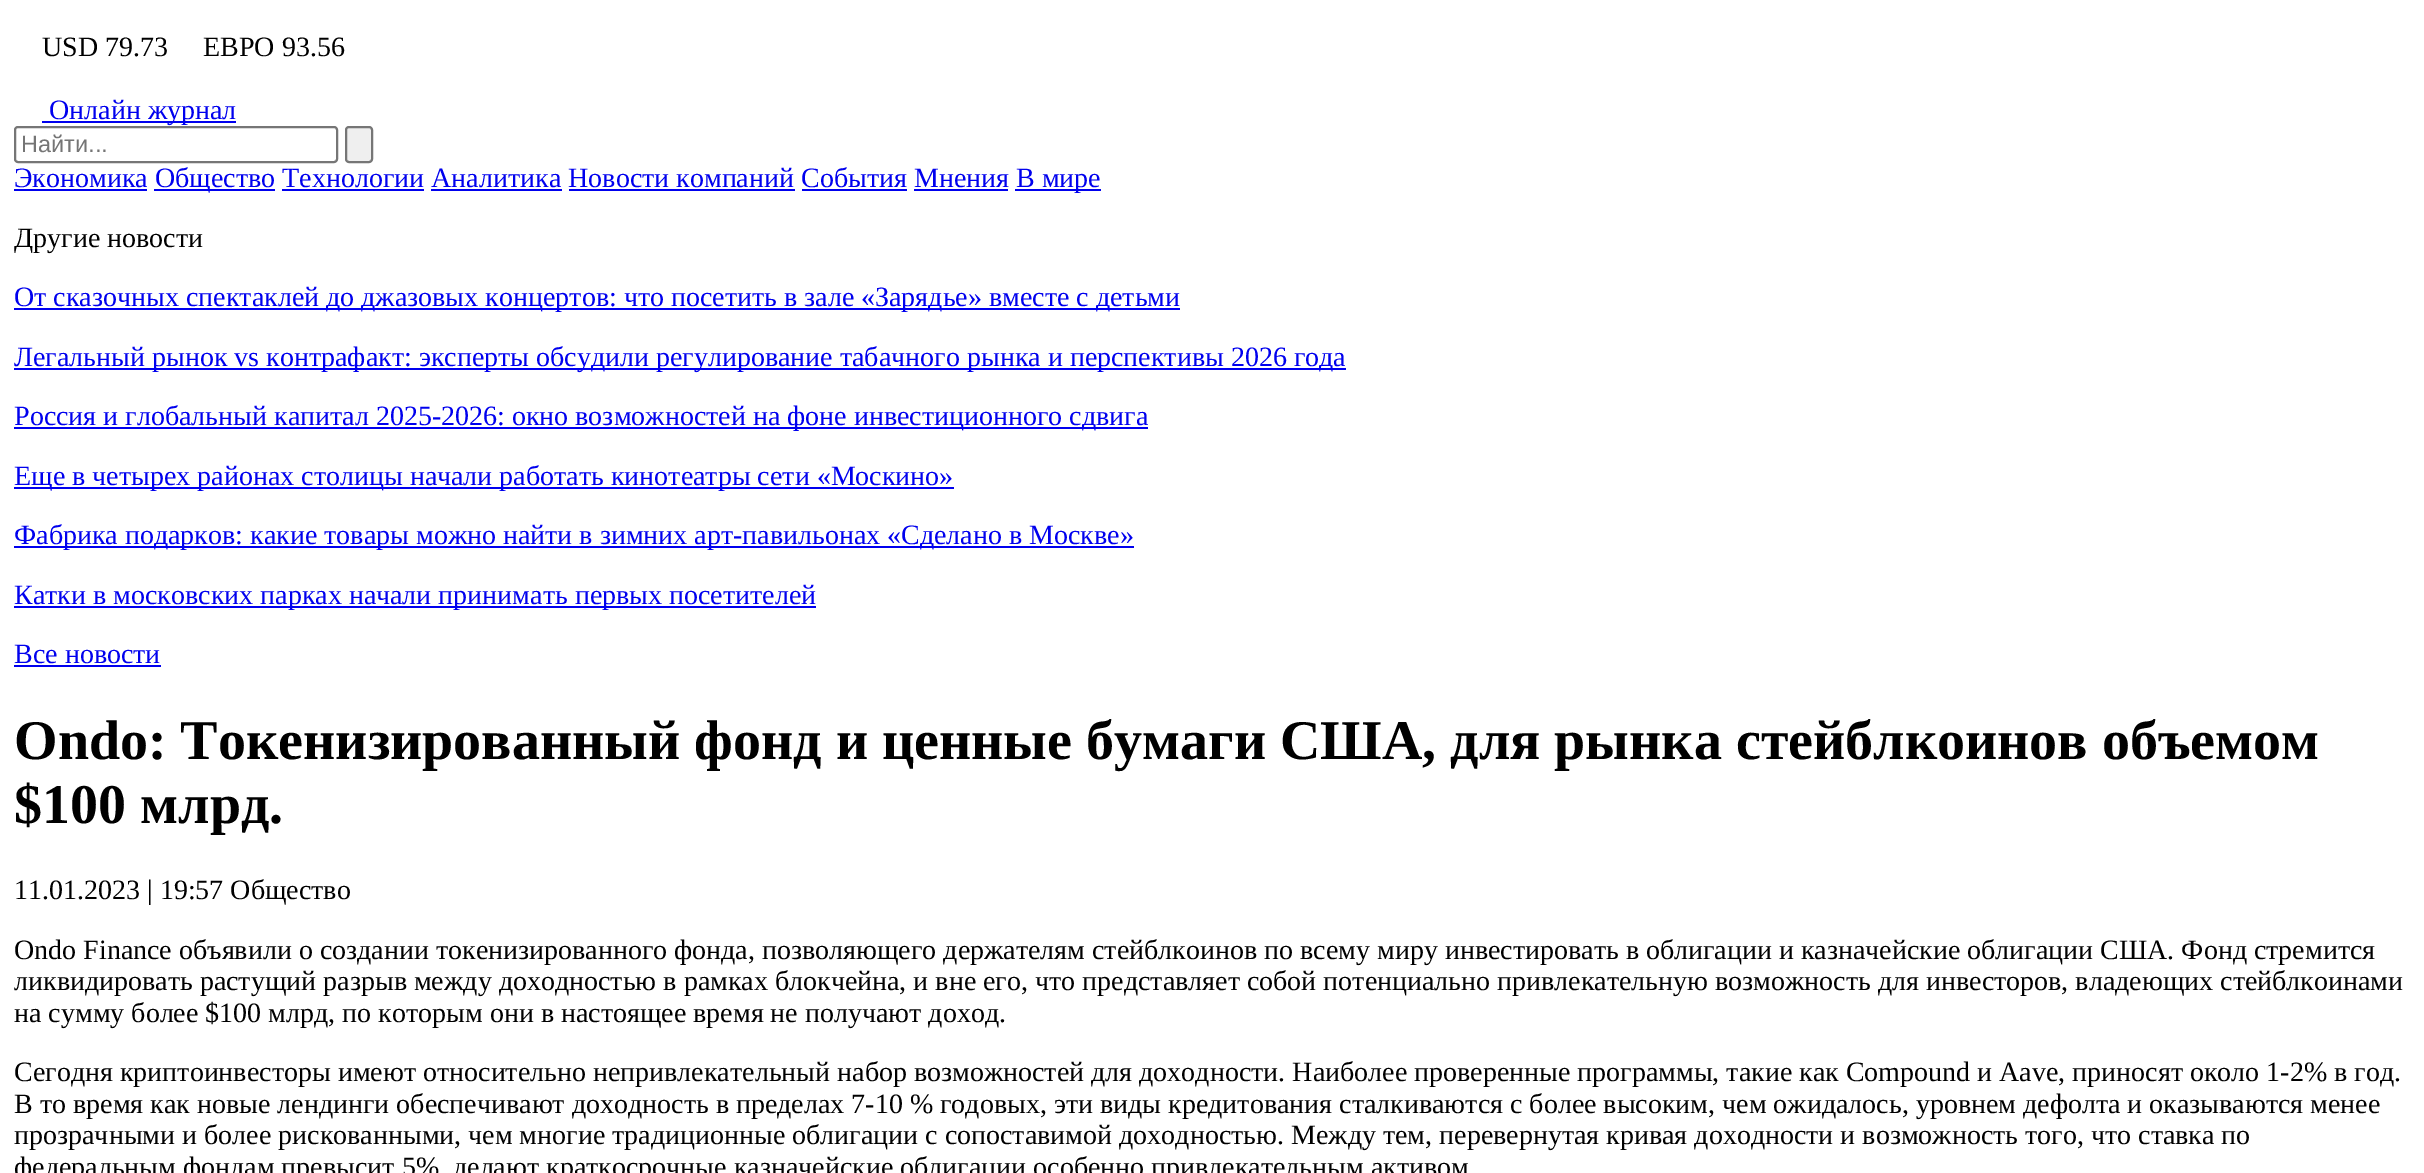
%!PS
<< /PageSize [2424 1173] >> setpagedevice
/rgb { dup -16 bitshift 255 div exch dup -8 bitshift 255 and 255 div exch 255 and 255 div setrgbcolor } def
/font { [ exch dup neg 0 0 3 -1 roll 0 0 ] selectfont } def
/text { moveto show } def
/roundrect { 5 dict begin { /r /h /w /y /x } { exch def } forall
  x r add y moveto x w add y 2 copy h add r arct x w add y h add x 1 index r arct
  x y h add x y r arct x y 2 copy exch w add exch r arct closepath end } def
0 1173 translate 1 -1 scale
4 setmiterlimit
/s1 { /LiberationSerif-Regular 28 font 16#000000 rgb } def
/s2 { /LiberationSerif-Regular 28 font 16#0000EE rgb } def
/s3 { /LiberationSans-Regular 23.5 font 16#757575 rgb } def
/s4 { /LiberationSerif-Bold 56 font 16#000000 rgb } def
16#FFFFFF rgb
0 0 2424 1173 rectfill
s1
(USD 79.73) 42 56 text
(ЕВРО 93.56) 203 56 text
16#0000EE rgb
42 121 194 2 rectfill
(Онлайн журнал) 49 119 text
16#767676 rgb
2 setlinewidth
15 127 322 35 3 roundrect stroke
s3
(Найти...) 21 152 text
16#EFEFEF rgb
346 127 26 35 3 roundrect gsave fill grestore
16#767676 rgb
stroke
s2
(Экономика) 14 187 text
14 189 133 2 rectfill
154 189 121 2 rectfill
(Общество Технологии Аналитика Новости компаний События Мнения) 155 187 text
1015 189 86 2 rectfill
(В мире) 1016 187 text
282 189 142 2 rectfill
431 189 131 2 rectfill
569 189 226 2 rectfill
802 189 105 2 rectfill
914 189 94 2 rectfill
s1
(Другие новости) 14 247 text
16#0000EE rgb
14 308 1166 2 rectfill
(От сказочных спектаклей до джазовых концертов: что посетить в зале «Зарядье» вместе с детьми) 14 306 text
14 368 1332 2 rectfill
(Легальный рынок vs контрафакт: эксперты обсудили регулирование табачного рынка и перспективы 2026 года) 14 366 text
14 427 1134 2 rectfill
(Россия и глобальный капитал 2025-2026: окно возможностей на фоне инвестиционного сдвига) 14 425 text
14 487 940 2 rectfill
(Еще в четырех районах столицы начали работать кинотеатры сети «Москино») 14 485 text
14 546 1120 2 rectfill
(Фабрика подарков: какие товары можно найти в зимних арт-павильонах «Сделано в Москве») 14 544 text
14 606 802 2 rectfill
(Катки в московских парках начали принимать первых посетителей) 14 604 text
(Все новости) 14 663 text
14 665 147 2 rectfill
s4
(Ondo: Токенизированный фонд и ценные бумаги США, для рынка стейблкоинов объемом) 14 759 text
($100 млрд.) 14 823 text
s1
(11.01.2023 | 19:57 Общество) 14 899 text
(Ondo Finance объявили о создании токенизированного фонда, позволяющего держателям стейблкоинов по всему миру инвестировать в облигации и казначейские облигации США. Фонд стремится) 14 959 text
(ликвидировать растущий разрыв между доходностью в рамках блокчейна, и вне его, что представляет собой потенциально привлекательную возможность для инвесторов, владеющих стейблкоинами) 14 990 text
(на сумму более $100 млрд, по которым они в настоящее время не получают доход.) 14 1022 text
(Сегодня криптоинвесторы имеют относительно непривлекательный набор возможностей для доходности. Наиболее проверенные программы, такие как Compound и Aave, приносят около 1-2% в год.) 14 1081 text
(В то время как новые лендинги обеспечивают доходность в пределах 7-10 % годовых, эти виды кредитования сталкиваются с более высоким, чем ожидалось, уровнем дефолта и оказываются менее) 14 1113 text
(прозрачными и более рискованными, чем многие традиционные облигации с сопоставимой доходностью. Между тем, перевернутая кривая доходности и возможность того, что ставка по) 14 1144 text
(федеральным фондам превысит 5%, делают краткосрочные казначейские облигации особенно привлекательным активом) 14 1176 text
showpage
